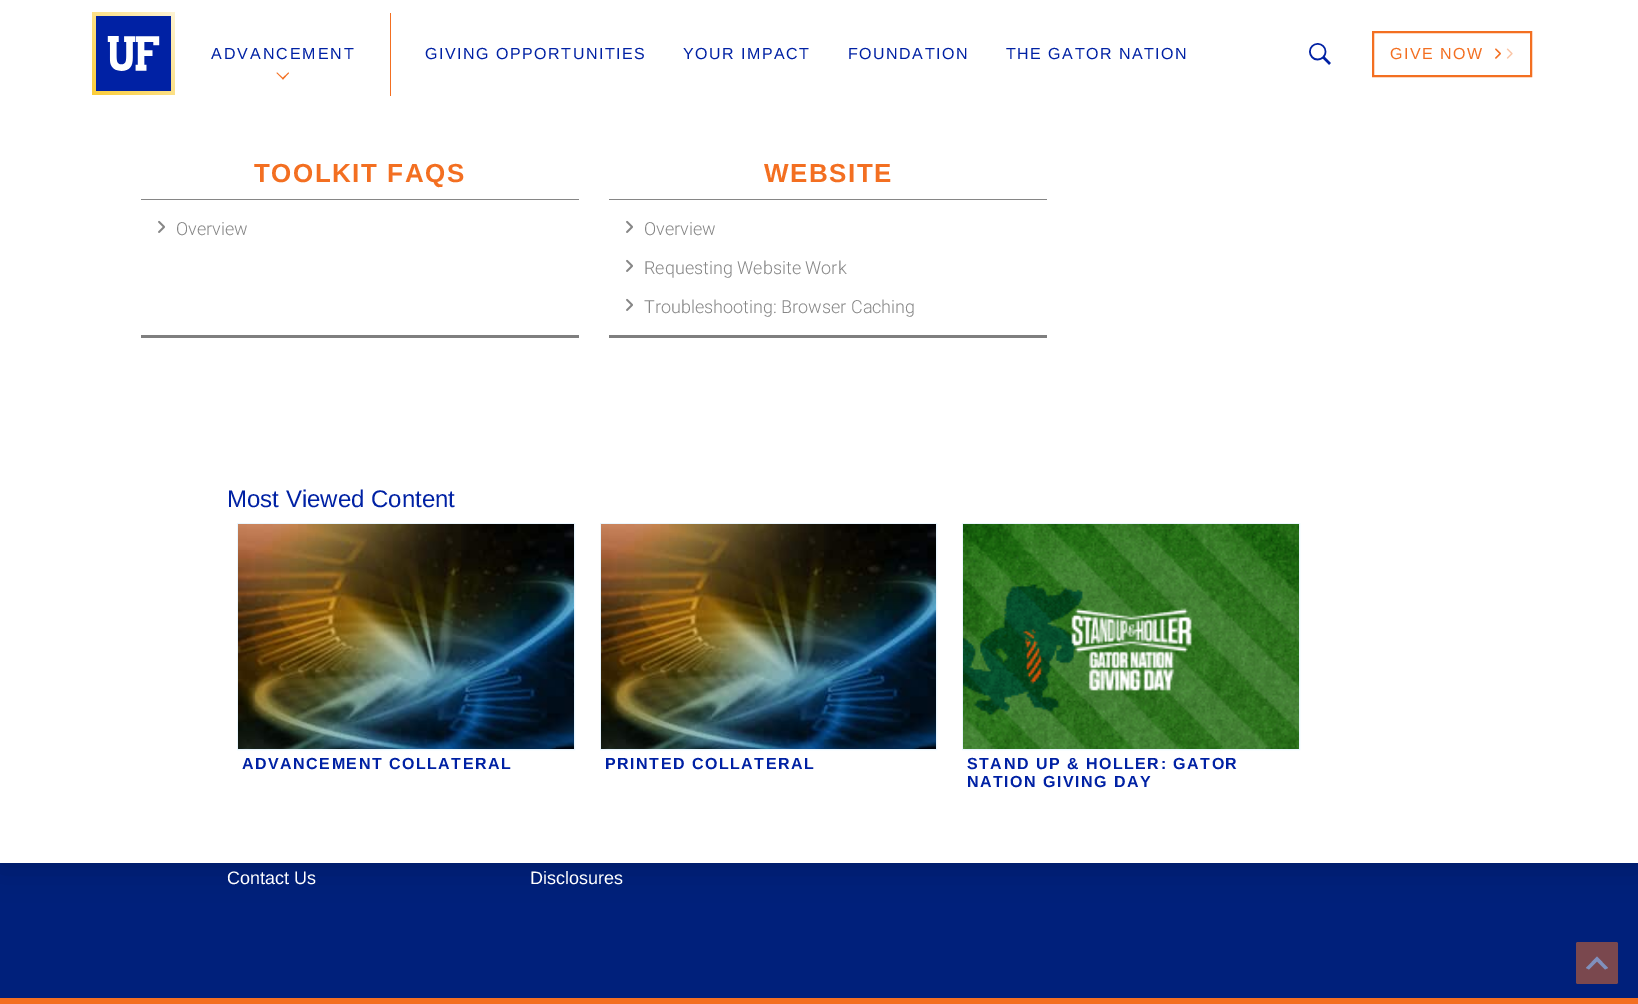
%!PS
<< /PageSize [1638 1004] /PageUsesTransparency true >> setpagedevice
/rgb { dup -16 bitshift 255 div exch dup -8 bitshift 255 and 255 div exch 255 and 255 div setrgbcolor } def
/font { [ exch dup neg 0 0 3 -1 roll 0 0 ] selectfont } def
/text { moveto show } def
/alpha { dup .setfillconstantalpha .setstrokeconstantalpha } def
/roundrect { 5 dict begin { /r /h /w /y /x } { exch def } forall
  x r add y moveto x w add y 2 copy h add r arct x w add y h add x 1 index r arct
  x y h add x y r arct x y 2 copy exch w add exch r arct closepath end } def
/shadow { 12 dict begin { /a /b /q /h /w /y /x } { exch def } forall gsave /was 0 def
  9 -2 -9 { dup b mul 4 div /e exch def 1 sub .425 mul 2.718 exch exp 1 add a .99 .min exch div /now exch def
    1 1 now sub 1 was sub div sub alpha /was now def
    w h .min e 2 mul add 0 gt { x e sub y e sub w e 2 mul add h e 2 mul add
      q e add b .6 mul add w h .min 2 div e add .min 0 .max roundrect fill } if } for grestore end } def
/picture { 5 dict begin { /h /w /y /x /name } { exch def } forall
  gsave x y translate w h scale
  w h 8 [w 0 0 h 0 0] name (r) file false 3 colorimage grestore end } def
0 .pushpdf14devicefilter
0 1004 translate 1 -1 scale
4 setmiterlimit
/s1 { /Roboto-Light 18 font 16#868686 rgb } def
/s2 { /LiberationSans-Regular 24 font 16#0021A4 rgb } def
/s3 { /LiberationSans-Regular 18 font 16#FFFFFF rgb } def
16#00207B rgb
0 0 1638 1004 rectfill
16#000000 rgb
0 -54 1638 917 0 18 0.2 shadow
16#FFFFFF rgb
0 0 1638 863 rectfill
gsave 92 12 moveto 175 12 lineto 175 95 lineto 92 95 lineto closepath clip newpath
<< /ShadingType 2 /ColorSpace /DeviceRGB /Coords [92 95 175 12] /Extend [true true] /Function << /FunctionType 2 /Domain [0 1] /C0 [0.984 0.804 0.22] /C1 [0.996 0.957 0.835] /N 1 >> >> shfill grestore
107 36 53 35 rectfill
(pic1.raw) 96 16 75 75 picture
/LiberationSans-Regular 16 font
16#0021A4 rgb
211 59 moveto 2 0 (ADVANCEMENT) ashow
16#F36F21 rgb
288.5 72.5 moveto 289 73 lineto 283 79.5 lineto 282 78.5 lineto closepath fill
277 72.5 moveto 283.5 78.5 lineto 283 79.5 lineto 276.5 73 lineto closepath fill
390 13 1 83 rectfill
16#0021A4 rgb
425 59 moveto 1.5 0 (GIVING OPPORTUNITIES) ashow
683 59 moveto 1.5 0 (YOUR IMPACT) ashow
848 59 moveto 1.5 0 (FOUNDATION) ashow
1006 59 moveto 1.5 0 (THE GATOR NATION) ashow
(pic2.raw) 1309 43 22 22 picture
16#F36F21 rgb
2 setlinewidth
1373 32 158 44 rectstroke
1390 59 moveto 1.5 0 (GIVE NOW) ashow
(pic3.raw) 1495 48 6 11 picture
(pic4.raw) 1495 48 18 11 picture
16#7F7F7F rgb
141 335 438 3 rectfill
16#868686 rgb
141 199 438 1 rectfill
/LiberationSans-Bold 26 font
16#F36F21 rgb
254 182 moveto 1.5 0 (TOOLKIT FAQS) ashow
(pic5.raw) 158 220 7 13 picture
s1
(Overview) 176 235 text
16#7F7F7F rgb
609 335 438 3 rectfill
16#868686 rgb
609 199 438 1 rectfill
/LiberationSans-Bold 26 font
16#F36F21 rgb
764 182 moveto 1.5 0 (WEBSITE) ashow
(pic5.raw) 626 220 7 13 picture
s1
(Overview) 644 235 text
(pic5.raw) 626 259 7 13 picture
(Requesting Website Work) 644 274 text
(pic5.raw) 626 298 7 13 picture
(Troubleshooting: Browser Caching) 644 313 text
s2
(Most Viewed Content) 227 507 text
16#EAF6FE rgb
1 setlinewidth
237.5 523.5 337 226 rectstroke
(pic6.raw) 238 524 336 225 picture
/LiberationSans-Bold 16 font
16#0021A4 rgb
242 769 moveto 1.5 0 (ADVANCEMENT COLLATERAL) ashow
16#EAF6FE rgb
600.5 523.5 336 226 rectstroke
(pic7.raw) 601 524 335 225 picture
16#0021A4 rgb
605 769 moveto 1.5 0 (PRINTED COLLATERAL) ashow
16#EAF6FE rgb
962.5 523.5 337 226 rectstroke
(pic8.raw) 963 524 336 225 picture
16#0021A4 rgb
967 769 moveto 1.5 0 (STAND UP & HOLLER: GATOR) ashow
967 787 moveto 1.5 0 (NATION GIVING DAY) ashow
16#F36F21 rgb
0 998 1638 6 rectfill
s3
(Contact Us) 227 884 text
(Disclosures) 530 884 text
16#7A484E rgb
1576 942 42 42 2 roundrect fill
16#8090BD rgb
1605 969.5 moveto 1597 961.5 lineto 1589 969.5 lineto 1586 968 lineto 1597 956.5 lineto 1608 968 lineto closepath fill
.poppdf14devicefilter showpage
